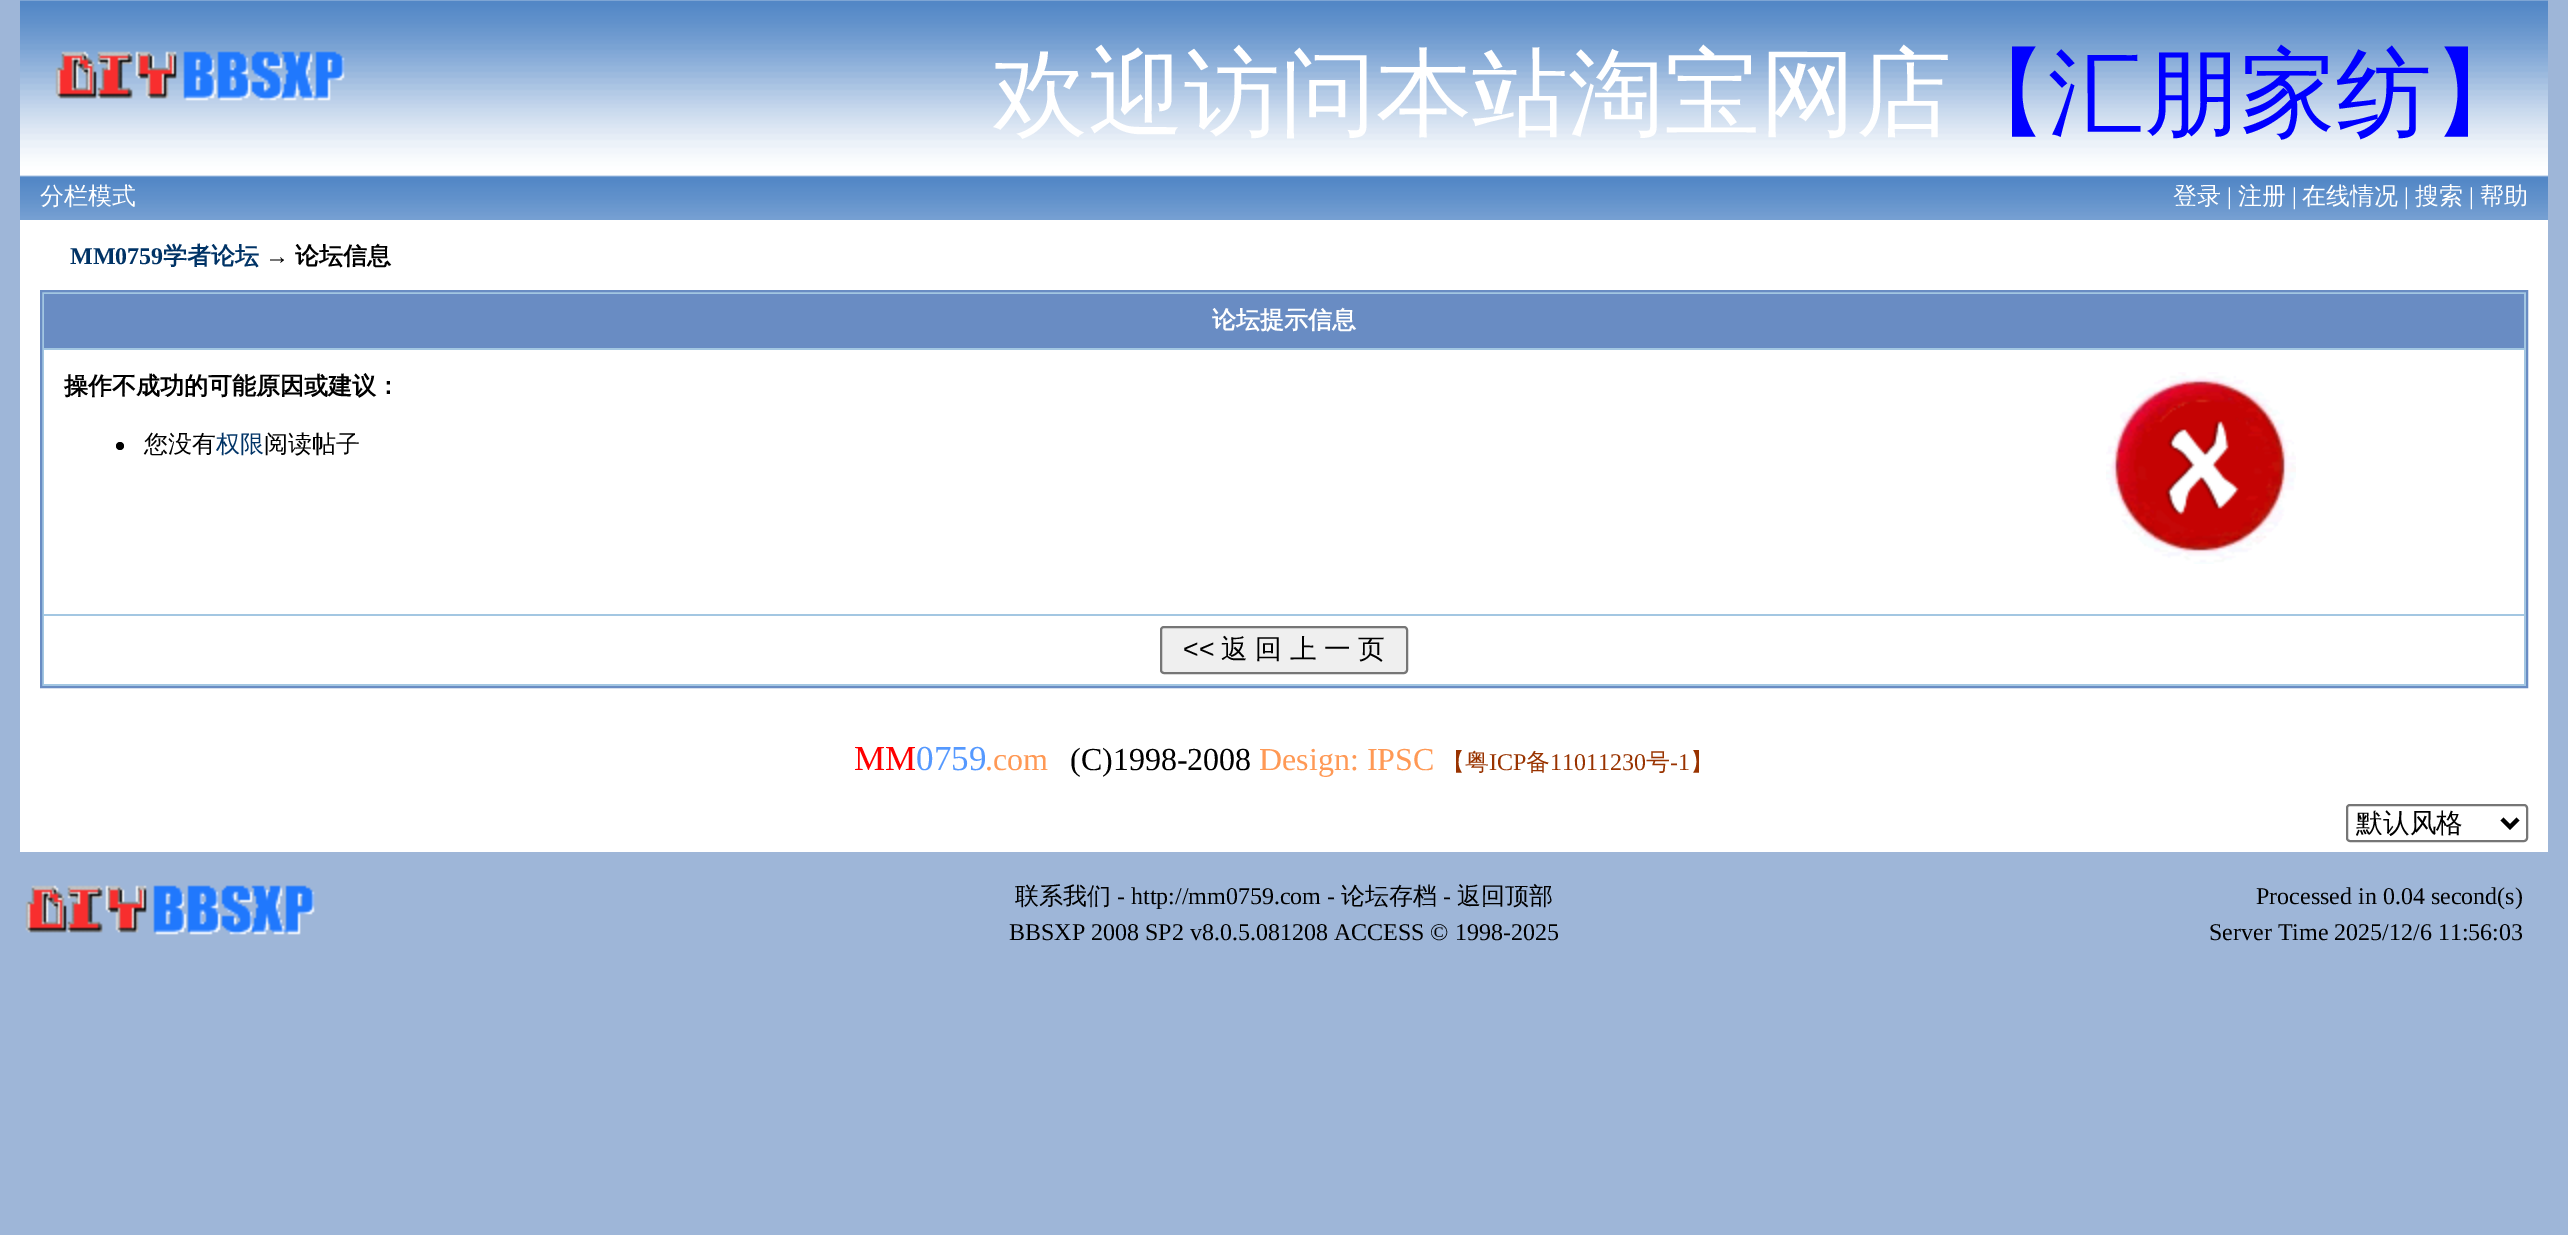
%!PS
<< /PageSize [2568 1235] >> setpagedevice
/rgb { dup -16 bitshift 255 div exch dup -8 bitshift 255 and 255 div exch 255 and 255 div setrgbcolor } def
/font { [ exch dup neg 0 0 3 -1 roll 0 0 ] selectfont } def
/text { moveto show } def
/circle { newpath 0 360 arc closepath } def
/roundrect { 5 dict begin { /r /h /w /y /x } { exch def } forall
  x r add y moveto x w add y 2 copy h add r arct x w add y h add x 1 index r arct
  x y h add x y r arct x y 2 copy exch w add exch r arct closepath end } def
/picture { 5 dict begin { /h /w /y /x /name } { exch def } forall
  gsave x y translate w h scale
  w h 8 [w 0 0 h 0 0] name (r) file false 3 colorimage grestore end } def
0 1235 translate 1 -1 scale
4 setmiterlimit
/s1 { /WenQuanYiZenHei-Medium 96 font 16#FFFFFF rgb } def
/s2 { /WenQuanYiZenHei-Medium 96 font 16#0000FF rgb } def
/s3 { /WenQuanYiZenHei-Medium 24 font 16#FFFFFF rgb } def
/s4 { /LiberationSerif-Regular 24 font 16#FFFFFF rgb } def
/s5 { /LiberationSerif-Bold 24 font 16#003366 rgb } def
/s6 { /WenQuanYiZenHei-Bold 24 font 16#003366 rgb } def
/s7 { /LiberationSerif-Bold 24 font 16#000000 rgb } def
/s8 { /WenQuanYiZenHei-Bold 24 font 16#000000 rgb } def
/s9 { /WenQuanYiZenHei-Bold 24 font 16#FFFFFF rgb } def
/s10 { /WenQuanYiZenHei-Medium 24 font 16#000000 rgb } def
/s11 { /WenQuanYiZenHei-Medium 24 font 16#003366 rgb } def
/s12 { /LiberationSans-Regular 26.75 font 16#000000 rgb } def
/s13 { /LiberationSerif-Regular 35 font 16#FF0000 rgb } def
/s14 { /LiberationSerif-Regular 35 font 16#5599FF rgb } def
/s15 { /LiberationSerif-Regular 32 font 16#FF9955 rgb } def
/s16 { /LiberationSerif-Regular 32 font 16#000000 rgb } def
/s17 { /WenQuanYiZenHei-Medium 24 font 16#993300 rgb } def
/s18 { /LiberationSerif-Regular 24 font 16#993300 rgb } def
/s19 { /WenQuanYiZenHei-Medium 26.75 font 16#000000 rgb } def
/s20 { /LiberationSerif-Regular 24 font 16#000000 rgb } def
16#9EB6D8 rgb
0 0 2568 1235 rectfill
(pic1.raw) 20 0 2528 220 picture
(pic2.raw) 55 51 290 50 picture
s1
(欢迎访问本站淘宝网店) 992 126 text
s2
(【汇朋家纺】) 1952 126 text
s3
(分栏模式) 40 204 text
(登录) 2173 204 text
s4
(|) 2227 204 text
s3
(注册) 2238 204 text
s4
(|) 2292 204 text
s3
(在线情况) 2302 204 text
s4
(|) 2404 204 text
s3
(搜索) 2415 204 text
s4
(|) 2469 204 text
s3
(帮助) 2480 204 text
20 220 2528 632 rectfill
s5
(MM0759) 70 264 text
s6
(学者论坛) 163 264 text
s7
(→) 265 264 text
s8
(论坛信息) 295 264 text
16#A3C7E2 rgb
41 291 moveto 2527 291 lineto 2527 687 lineto 41 687 lineto closepath gsave fill grestore
16#698CC3 rgb
2 setlinewidth
stroke
44 294 2480 54 rectfill
s9
(论坛提示信息) 1212 328 text
44 350 2480 264 rectfill
s8
(操作不成功的可能原因或建议：) 64 394 text
120 446 4 circle fill
s10
(您没有) 144 452 text
s11
(权限) 216 452 text
s10
(阅读帖子) 264 452 text
(pic3.raw) 2106 372 190 192 picture
16#FFFFFF rgb
44 616 2480 68 rectfill
16#EFEFEF rgb
1161 627 246 46 3 roundrect gsave fill grestore
16#767676 rgb
stroke
s12
(<<) 1183 658 text
/WenQuanYiZenHei-Medium 26.75 font
1221 658 moveto -0.5 0 32 (返 回 上 一 页) widthshow
s13
(MM) 854 770 text
s14
(0759) 916 770 text
s15
(.com) 985 770 text
s16
(\(C\)1998-2008) 1070 770 text
s15
(Design: IPSC) 1259 770 text
s17
(【粤) 1441 770 text
s18
(ICP) 1489 770 text
s17
(备) 1526 770 text
s18
(11011230) 1550 770 text
s17
(号) 1646 770 text
s18
(-1) 1670 770 text
s17
(】) 1690 770 text
16#767676 rgb
2347 805 180 36 3 roundrect stroke
16#000000 rgb
4 setlinewidth
2502 819 moveto 2510 827 lineto 2518 819 lineto stroke
s19
(默认风格) 2356 832 text
(pic4.raw) 25 885 290 50 picture
s10
(联系我们) 1015 904 text
s20
(- http://mm0759.com -) 1117 904 text
s10
(论坛存档) 1341 904 text
s20
(-) 1443 904 text
s10
(返回顶部) 1457 904 text
s20
(BBSXP 2008 SP2 v8.0.5.081208 ACCESS © 1998-2025) 1009 940 text
(Processed in 0.04 second\(s\)) 2256 904 text
(Server Time 2025/12/6 11:56:03) 2209 940 text
showpage
